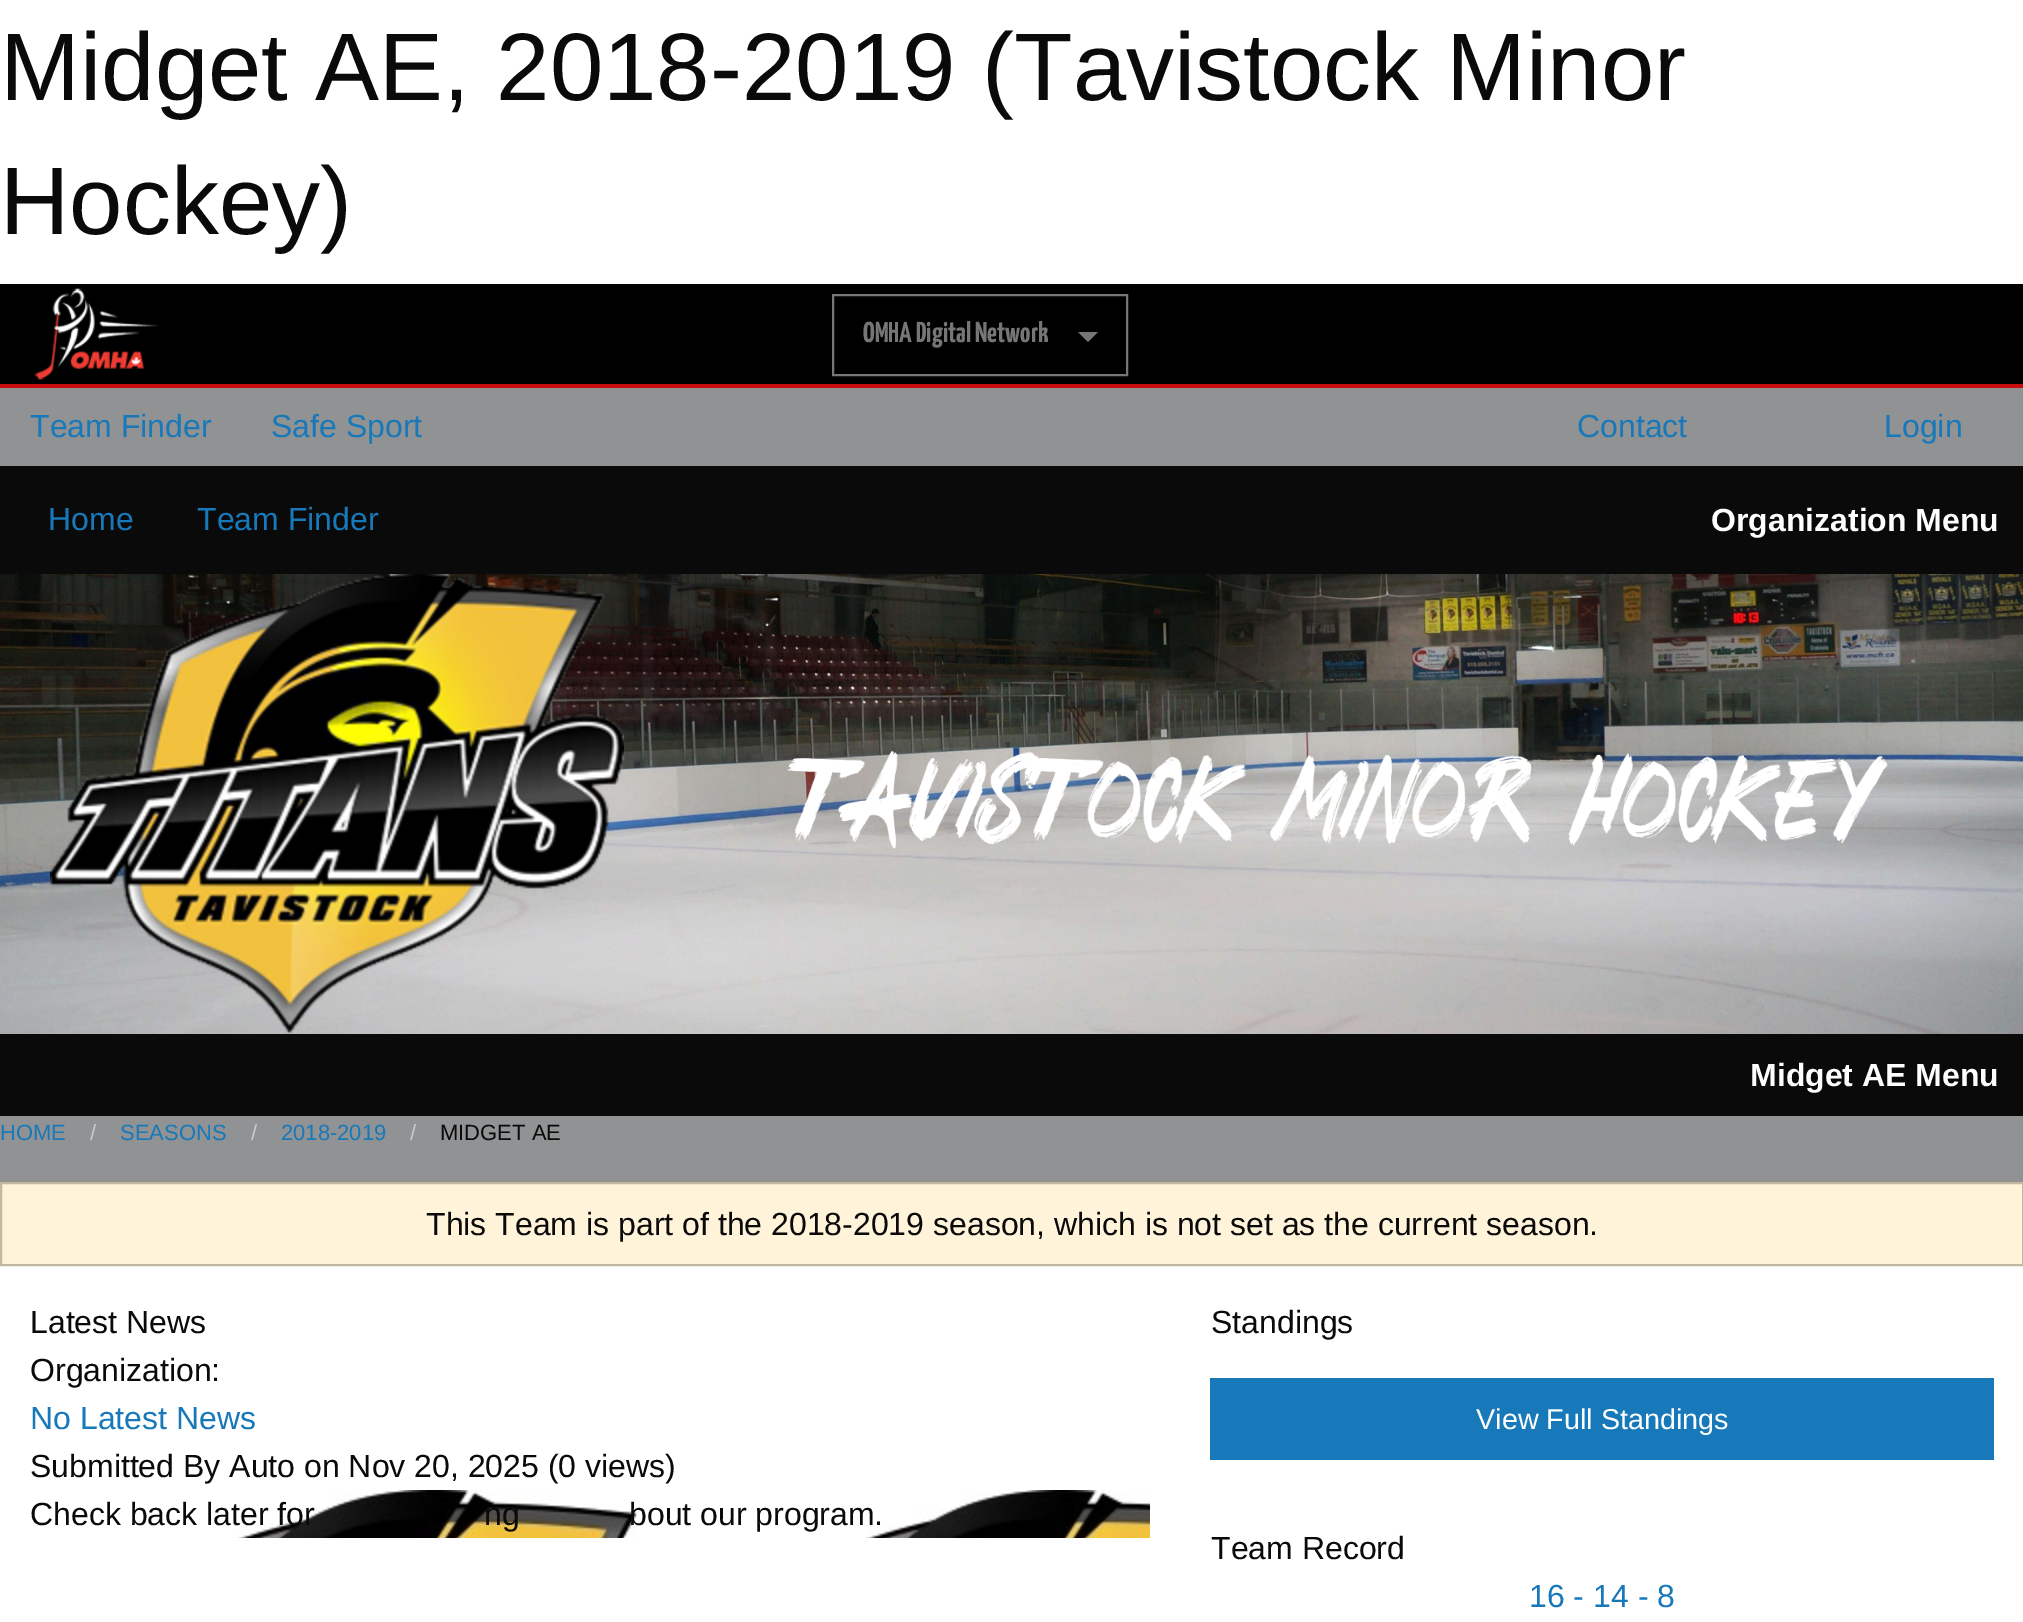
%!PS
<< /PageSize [2023 1622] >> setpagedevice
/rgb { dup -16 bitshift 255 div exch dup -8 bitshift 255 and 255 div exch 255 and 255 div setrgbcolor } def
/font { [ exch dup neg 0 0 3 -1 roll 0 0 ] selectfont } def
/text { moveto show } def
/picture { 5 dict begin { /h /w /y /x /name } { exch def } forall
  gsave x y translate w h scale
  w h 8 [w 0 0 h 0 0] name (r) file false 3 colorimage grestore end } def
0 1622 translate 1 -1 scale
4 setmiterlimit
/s1 { /LiberationSans-Regular 96 font 16#0A0A0A rgb } def
/s2 { /YanoneKaffeesatz-ExtraLight 28.75 font 16#767676 rgb } def
/s3 { /LiberationSans-Regular 32 font 16#1779BA rgb } def
/s4 { /LiberationSans-Bold 32 font 16#FEFEFE rgb } def
/s5 { /LiberationSans-Regular 22 font 16#1779BA rgb } def
/s6 { /LiberationSans-Regular 22 font 16#CACACA rgb } def
/s7 { /LiberationSans-Regular 22 font 16#0A0A0A rgb } def
/s8 { /LiberationSans-Regular 32 font 16#0A0A0A rgb } def
/s9 { /LiberationSans-Regular 28.75 font 16#FEFEFE rgb } def
16#FFFFFF rgb
0 0 2023 1622 rectfill
s1
(Midget AE, 2018-2019 \(Tavistock Minor) 0 100 text
(Hockey\)) 0 234 text
16#000000 rgb
0 284 2023 100 rectfill
16#C60C0C rgb
0 384 2023 4 rectfill
(pic1.raw) 34 288 125 92 picture
16#767676 rgb
2 setlinewidth
833 295 294 80 rectstroke
s2
(OMHA Digital Network) 863 342 text
1078 332 moveto 1098 332 lineto 1088 342 lineto closepath fill
16#909293 rgb
0 388 2023 794 rectfill
s3
(Team Finder) 30 437 text
(Safe Sport) 271 437 text
(Contact) 1577 437 text
(Login) 1884 437 text
16#0A0A0A rgb
0 466 2023 108 rectfill
s3
(Home) 48 530 text
(Team Finder) 197 530 text
s4
(Organization Menu) 1711 531 text
(pic2.raw) 0 574 2023 460 picture
(pic3.raw) 50 574 574 460 picture
(pic4.raw) 787 750 1101 99 picture
16#0A0A0A rgb
0 1034 2023 82 rectfill
s4
(Midget AE Menu) 1750 1086 text
s5
(HOME) 0 1140 text
s6
(/) 90 1140 text
s5
(SEASONS) 120 1140 text
s6
(/) 251 1140 text
s5
(2018-2019) 281 1140 text
s6
(/) 410 1140 text
s7
(MIDGET AE) 440 1140 text
16#FFF3D9 rgb
1 1183 moveto 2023 1183 lineto 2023 1265 lineto 1 1265 lineto closepath gsave fill grestore
16#C2B9A5 rgb
stroke
s8
(This Team is part of the 2018-2019 season, which is not set as the current season.) 426 1235 text
(Latest News) 30 1333 text
(Organization:) 30 1381 text
s3
(No Latest News) 30 1429 text
s8
(Submitted By Auto on Nov 20, 2025 \(0 views\)) 30 1477 text
(pic5.raw) 237 1490 913 48 picture
(Check back later for) 30 1525 text
(ng) 484 1525 text
(bout our program.) 629 1525 text
(Standings) 1211 1333 text
16#1779BA rgb
1210 1378 784 82 rectfill
s9
(View Full Standings) 1476 1429 text
s8
(Team Record) 1211 1559 text
s3
(16 - 14 - 8) 1529 1607 text
showpage
